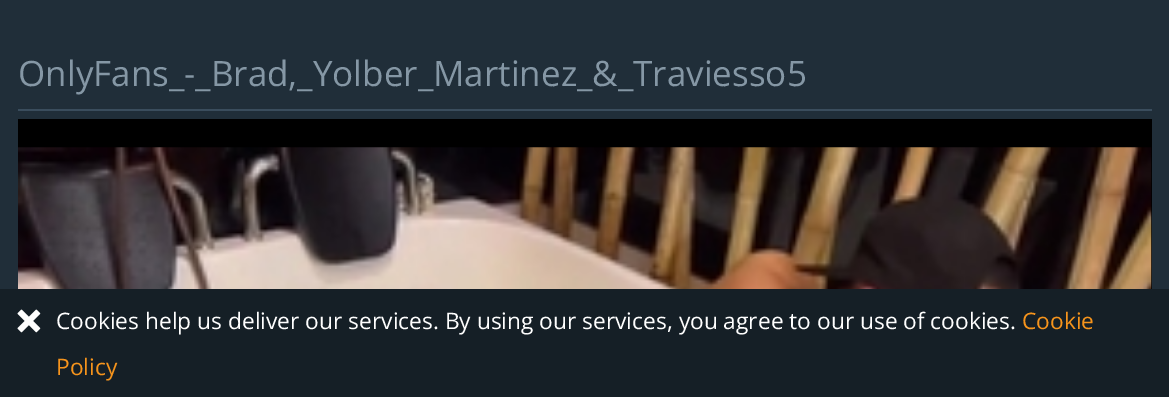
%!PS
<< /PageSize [1169 397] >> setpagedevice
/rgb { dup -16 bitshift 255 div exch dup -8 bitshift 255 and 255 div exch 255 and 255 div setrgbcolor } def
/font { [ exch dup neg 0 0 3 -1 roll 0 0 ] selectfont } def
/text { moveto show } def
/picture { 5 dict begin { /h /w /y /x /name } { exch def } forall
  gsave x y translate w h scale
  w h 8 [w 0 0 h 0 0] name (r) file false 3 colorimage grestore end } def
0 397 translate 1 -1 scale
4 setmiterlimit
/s1 { /OpenSans-Regular 35 font 16#8597A5 rgb } def
/s2 { /OpenSans-Regular 22.75 font 16#FFFFFF rgb } def
/s3 { /OpenSans-Regular 22.75 font 16#F6941C rgb } def
16#202E39 rgb
0 0 1169 397 rectfill
16#3A4D5D rgb
18 109 1134 2 rectfill
s1
(OnlyFans_-_Brad,_Yolber_Martinez_&_Traviesso5) 18 86 text
16#000000 rgb
18 119 1134 170 rectfill
(pic1.raw) 18 147 1134 142 picture
16#151F26 rgb
0 289 1169 108 rectfill
(pic2.raw) 17 309 24 24 picture
s2
(Cookies help us deliver our services. By using our services, you agree to our use of cookies.) 56 329 text
s3
(Cookie) 1022 329 text
(Policy) 56 375 text
showpage
